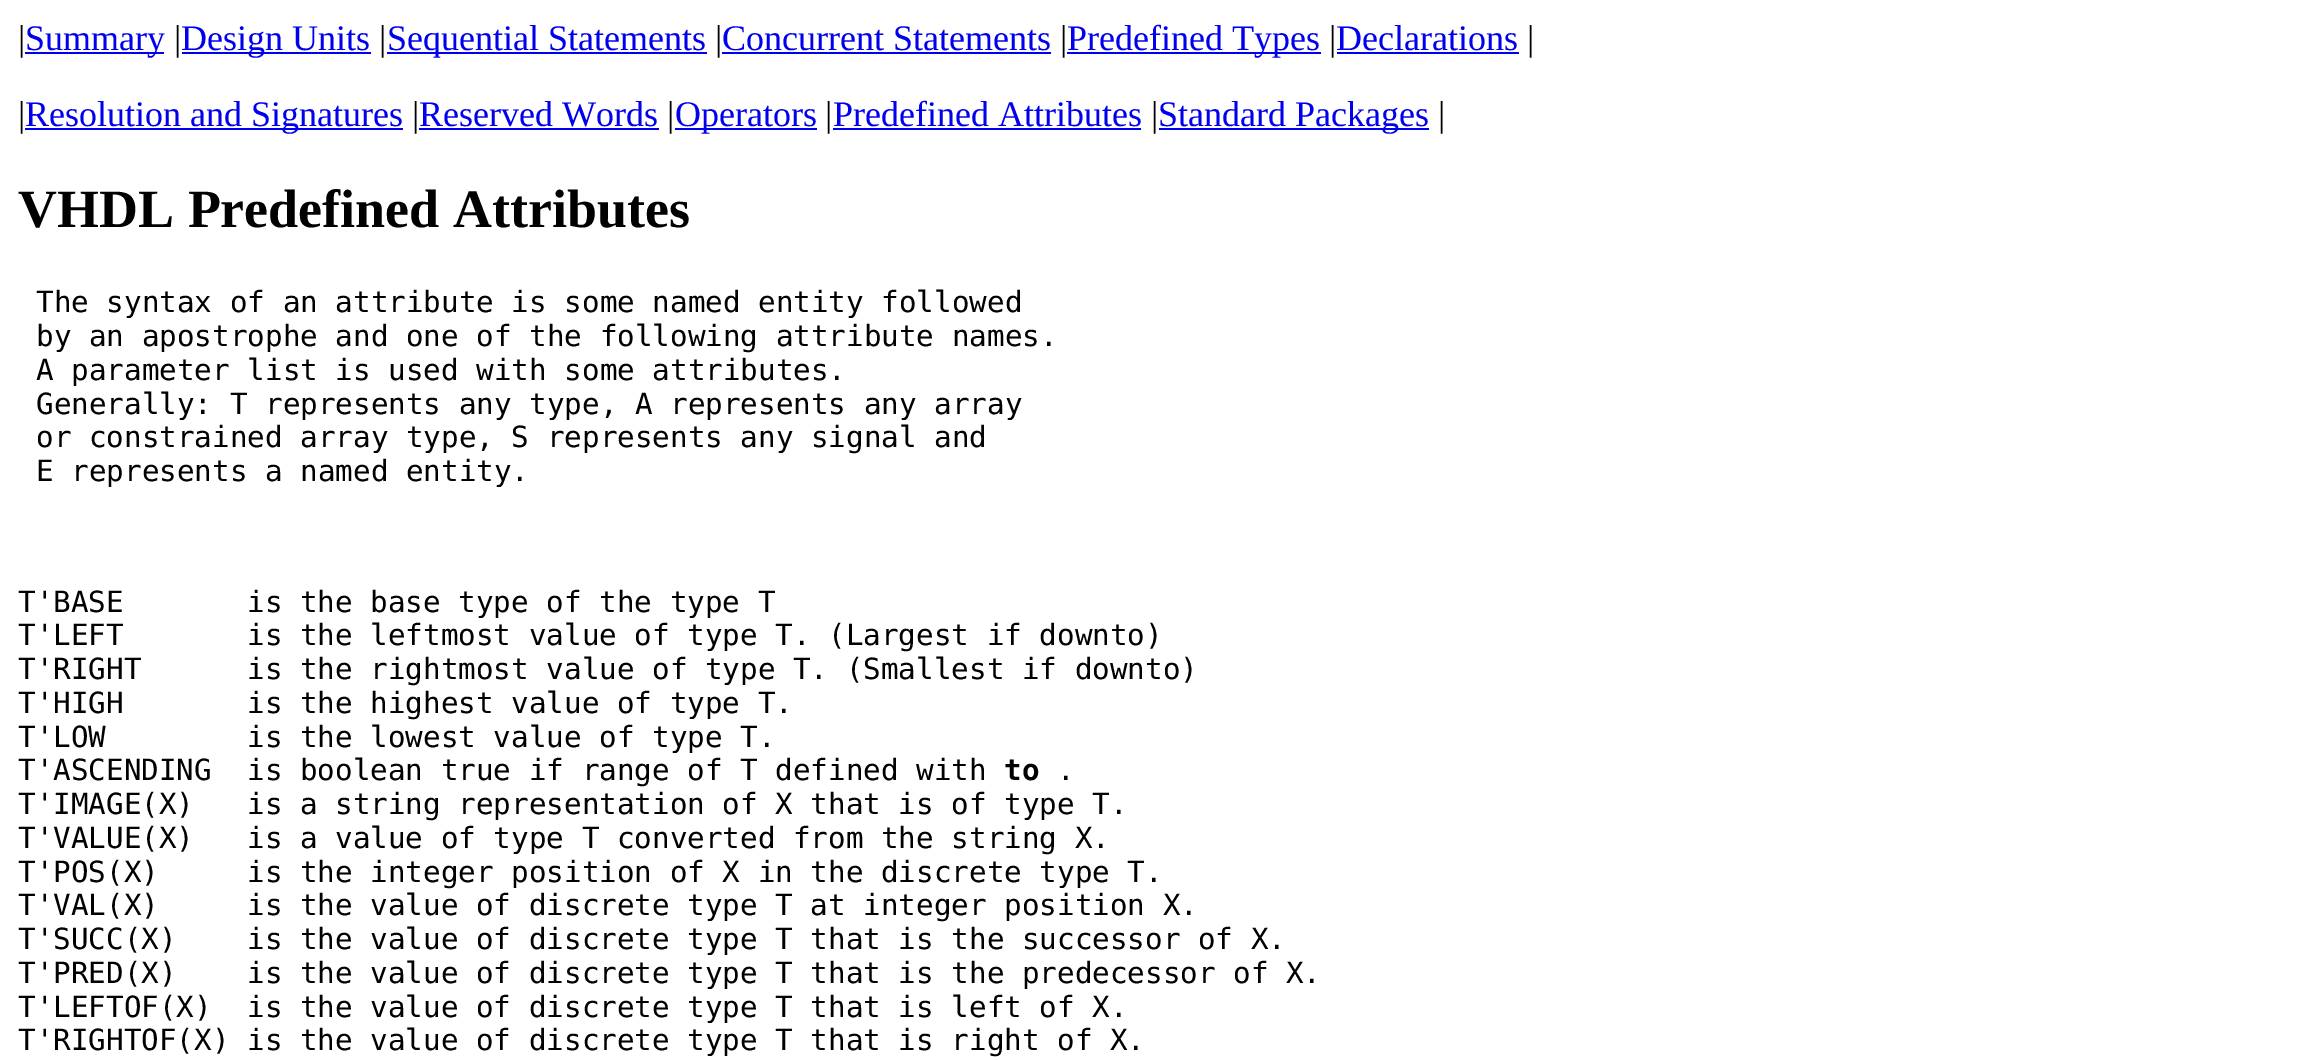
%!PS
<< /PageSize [2306 1060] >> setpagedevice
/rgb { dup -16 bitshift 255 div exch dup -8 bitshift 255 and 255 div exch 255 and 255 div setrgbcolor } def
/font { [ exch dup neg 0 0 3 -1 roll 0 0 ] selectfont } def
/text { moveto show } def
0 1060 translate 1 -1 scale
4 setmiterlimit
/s1 { /LiberationSerif-Regular 36 font 16#000000 rgb } def
/s2 { /LiberationSerif-Regular 36 font 16#0000EE rgb } def
/s3 { /LiberationSerif-Bold 54 font 16#000000 rgb } def
/s4 { /DejaVuSansMono-Regular 29.25 font 16#000000 rgb } def
/s5 { /DejaVuSansMono-Bold 29.25 font 16#000000 rgb } def
16#FFFFFF rgb
0 0 2306 1060 rectfill
s1
(|) 18 50 text
16#0000EE rgb
25 52 139 2 rectfill
(Summary) 25 50 text
s1
(|) 174 50 text
16#0000EE rgb
182 52 189 2 rectfill
(Design Units) 181 50 text
s1
(|) 379 50 text
16#0000EE rgb
387 52 320 2 rectfill
(Sequential Statements) 387 50 text
s1
(|) 715 50 text
s2
(Concurrent Statements) 722 50 text
722 52 329 2 rectfill
s1
(|) 1060 50 text
16#0000EE rgb
1067 52 254 2 rectfill
(Predefined Types) 1067 50 text
s1
(|) 1329 50 text
s2
(Declarations) 1336 50 text
1337 52 182 2 rectfill
s1
(|) 1527 50 text
(|) 18 126 text
16#0000EE rgb
25 128 378 2 rectfill
(Resolution and Signatures) 25 126 text
s1
(|) 412 126 text
s2
(Reserved Words) 419 126 text
419 128 240 2 rectfill
s1
(|) 667 126 text
16#0000EE rgb
675 128 142 2 rectfill
(Operators) 675 126 text
s1
(|) 825 126 text
s2
(Predefined Attributes) 833 126 text
833 128 308 2 rectfill
s1
(|) 1151 126 text
16#0000EE rgb
1159 128 270 2 rectfill
(Standard Packages) 1158 126 text
s1
(|) 1438 126 text
s3
(VHDL Predefined Attributes) 18 227 text
s4
(The syntax of an attribute is some named entity followed) 36 312 text
(by an apostrophe and one of the following attribute names.) 36 346 text
(A parameter list is used with some attributes.) 36 380 text
(Generally: T represents any type, A represents any array) 36 414 text
(or constrained array type, S represents any signal and) 36 447 text
(E represents a named entity.) 36 481 text
(T'BASE       is the base type of the type T) 18 612 text
(T'LEFT       is the leftmost value of type T. \(Largest if downto\)) 18 645 text
(T'RIGHT      is the rightmost value of type T. \(Smallest if downto\)) 18 679 text
(T'HIGH       is the highest value of type T.) 18 713 text
(T'LOW        is the lowest value of type T.) 18 747 text
(T'ASCENDING  is boolean true if range of T defined with) 18 780 text
s5
(to) 1004 780 text
s4
(.) 1057 780 text
(T'IMAGE\(X\)   is a string representation of X that is of type T.) 18 814 text
(T'VALUE\(X\)   is a value of type T converted from the string X.) 18 848 text
(T'POS\(X\)     is the integer position of X in the discrete type T.) 18 882 text
(T'VAL\(X\)     is the value of discrete type T at integer position X.) 18 915 text
(T'SUCC\(X\)    is the value of discrete type T that is the successor of X.) 18 949 text
(T'PRED\(X\)    is the value of discrete type T that is the predecessor of X.) 18 983 text
(T'LEFTOF\(X\)  is the value of discrete type T that is left of X.) 18 1017 text
(T'RIGHTOF\(X\) is the value of discrete type T that is right of X.) 18 1050 text
showpage
